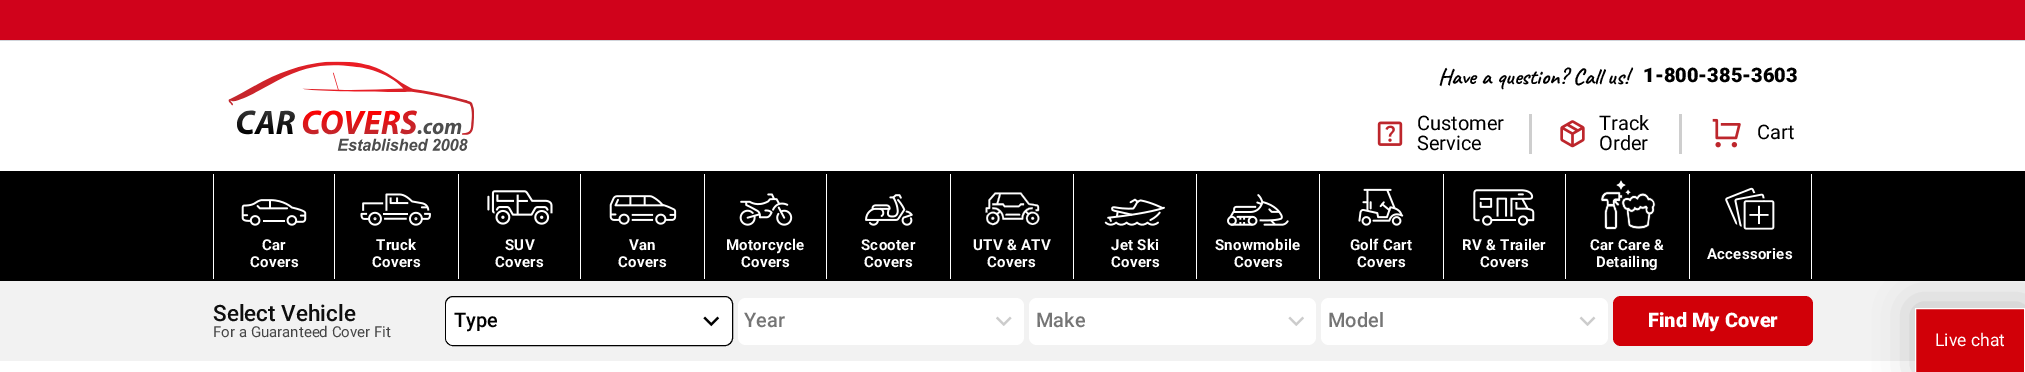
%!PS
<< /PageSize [2025 372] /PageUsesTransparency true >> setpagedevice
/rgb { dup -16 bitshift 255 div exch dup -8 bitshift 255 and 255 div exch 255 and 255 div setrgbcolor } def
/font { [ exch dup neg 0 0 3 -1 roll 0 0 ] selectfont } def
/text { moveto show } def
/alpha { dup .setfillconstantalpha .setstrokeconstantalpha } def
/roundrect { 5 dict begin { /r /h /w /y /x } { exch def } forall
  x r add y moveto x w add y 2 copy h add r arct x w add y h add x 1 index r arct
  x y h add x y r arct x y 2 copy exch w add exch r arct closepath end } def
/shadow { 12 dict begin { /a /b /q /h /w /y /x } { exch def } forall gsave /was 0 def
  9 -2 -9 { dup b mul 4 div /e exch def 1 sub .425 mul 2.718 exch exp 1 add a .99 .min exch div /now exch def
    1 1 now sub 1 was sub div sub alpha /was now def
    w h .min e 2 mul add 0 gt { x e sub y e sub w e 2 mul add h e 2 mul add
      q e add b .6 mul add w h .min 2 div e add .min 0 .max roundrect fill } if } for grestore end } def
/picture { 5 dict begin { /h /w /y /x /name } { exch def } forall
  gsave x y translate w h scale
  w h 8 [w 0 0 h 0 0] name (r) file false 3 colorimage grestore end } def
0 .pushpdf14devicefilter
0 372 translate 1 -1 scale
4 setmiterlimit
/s1 { /Caveat-Bold 22.5 font 16#000000 rgb } def
/s2 { /Roboto-Black 20 font 16#000000 rgb } def
/s3 { /Roboto-Regular 20 font 16#000000 rgb } def
/s4 { /Roboto-Medium 22.5 font 16#0F0F0F rgb } def
/s5 { /Roboto-Regular 15 font 16#464646 rgb } def
/s6 { /Roboto-Medium 20 font 16#000000 rgb } def
/s7 { /Roboto-Medium 20 font 16#757575 rgb } def
/s8 { /Roboto-Black 20 font 16#FFFFFF rgb } def
/s9 { /Roboto-Regular 17.5 font 16#FFFFFF rgb } def
16#FFFFFF rgb
0 0 2025 372 rectfill
16#D0021B rgb
0 0 2025 40 rectfill
16#D1D5DB rgb
0 40 2025 1 rectfill
(pic1.raw) 228 61 246 90 picture
s1
(Have a question? Call us!) 1438 84 text
s2
(1-800-385-3603) 1643 82 text
16#CECECE rgb
1529 114 3 40 rectfill
(pic2.raw) 1377 121 26 25 picture
s3
(Customer) 1417 130 text
(Service) 1417 150 text
16#CECECE rgb
1679 114 3 40 rectfill
(pic3.raw) 1560 120 25 28 picture
s3
(Track) 1599 130 text
(Order) 1599 150 text
(pic4.raw) 1712 118 29 30 picture
(Cart) 1757 139 text
0 171 2025 110 rectfill
16#FFFFFF rgb
334 174 1 105 rectfill
213 174 1 105 rectfill
(pic5.raw) 241 199 66 27 picture
/Roboto-Bold 15 font
262 250 moveto 0.25 0 (Car) ashow
250 267 moveto 0.25 0 (Covers) ashow
458 174 1 105 rectfill
(pic6.raw) 360 193 71 33 picture
376 250 moveto 0.25 0 (Truck) ashow
372 267 moveto 0.25 0 (Covers) ashow
580 174 1 105 rectfill
(pic7.raw) 487 190 66 35 picture
505 250 moveto 0.25 0 (SUV) ashow
495 267 moveto 0.25 0 (Covers) ashow
704 174 1 105 rectfill
(pic8.raw) 609 195 68 30 picture
629 250 moveto 0.25 0 (Van) ashow
618 267 moveto 0.25 0 (Covers) ashow
826 174 1 105 rectfill
(pic9.raw) 739 193 54 33 picture
726 250 moveto 0.25 0 (Motorcycle) ashow
741 267 moveto 0.25 0 (Covers) ashow
950 174 1 105 rectfill
(pic10.raw) 865 194 48 32 picture
861 250 moveto 0.25 0 (Scooter) ashow
864 267 moveto 0.25 0 (Covers) ashow
1073 174 1 105 rectfill
(pic11.raw) 985 192 55 34 picture
973 250 moveto 0.25 0 (UTV & ATV) ashow
987 267 moveto 0.25 0 (Covers) ashow
1196 174 1 105 rectfill
(pic12.raw) 1104 198 61 28 picture
1111 250 moveto 0.25 0 (Jet Ski) ashow
1111 267 moveto 0.25 0 (Covers) ashow
1319 174 1 105 rectfill
(pic13.raw) 1227 194 62 32 picture
1215 250 moveto 0.25 0 (Snowmobile) ashow
1234 267 moveto 0.25 0 (Covers) ashow
1443 174 1 105 rectfill
(pic14.raw) 1358 188 46 38 picture
1350 250 moveto 0.25 0 (Golf Cart) ashow
1357 267 moveto 0.25 0 (Covers) ashow
1565 174 1 105 rectfill
(pic15.raw) 1473 189 62 37 picture
1462 250 moveto 0.25 0 (RV & Trailer) ashow
1480 267 moveto 0.25 0 (Covers) ashow
1689 174 1 105 rectfill
(pic16.raw) 1600 180 56 50 picture
1590 250 moveto 0.25 0 (Car Care &) ashow
1596 267 moveto 0.25 0 (Detailing) ashow
1811 174 1 105 rectfill
(pic17.raw) 1725 187 50 43 picture
1707 259 moveto 0.25 0 (Accessories) ashow
16#F2F2F2 rgb
0 281 2025 80 rectfill
s4
(Select Vehicle) 213 321 text
s5
(For a Guaranteed Cover Fit) 213 337 text
16#FFFFFF rgb
445.5 296.5 287 49 7.5 roundrect gsave fill grestore
16#000000 rgb
stroke
16#FFFFFF rgb
446 298 285 47 8 roundrect fill
s6
(Type) 454 327 text
(pic18.raw) 703 316 17 11 picture
16#FFFFFF rgb
738 298 286 47 8 roundrect fill
s7
(Year) 744 327 text
(pic19.raw) 996 316 16 10 picture
16#FFFFFF rgb
1029 298 287 47 8 roundrect fill
s7
(Make) 1036 327 text
(pic20.raw) 1288 316 16 10 picture
16#FFFFFF rgb
1321 298 287 47 8 roundrect fill
s7
(Model) 1328 327 text
(pic21.raw) 1579 316 17 10 picture
16#D10008 rgb
1613 296 200 50 8 roundrect fill
s8
(Find My Cover) 1648 327 text
16#000000 rgb
1914 306 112 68 0 19 0.2 shadow
16#D10008 rgb
1915.5 308.5 moveto 2024.5 308.5 lineto 2024.5 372.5 lineto 1915.5 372.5 lineto closepath gsave fill grestore
16#FFFFFF rgb
stroke
s9
(Live chat) 1935 346 text
.poppdf14devicefilter showpage
